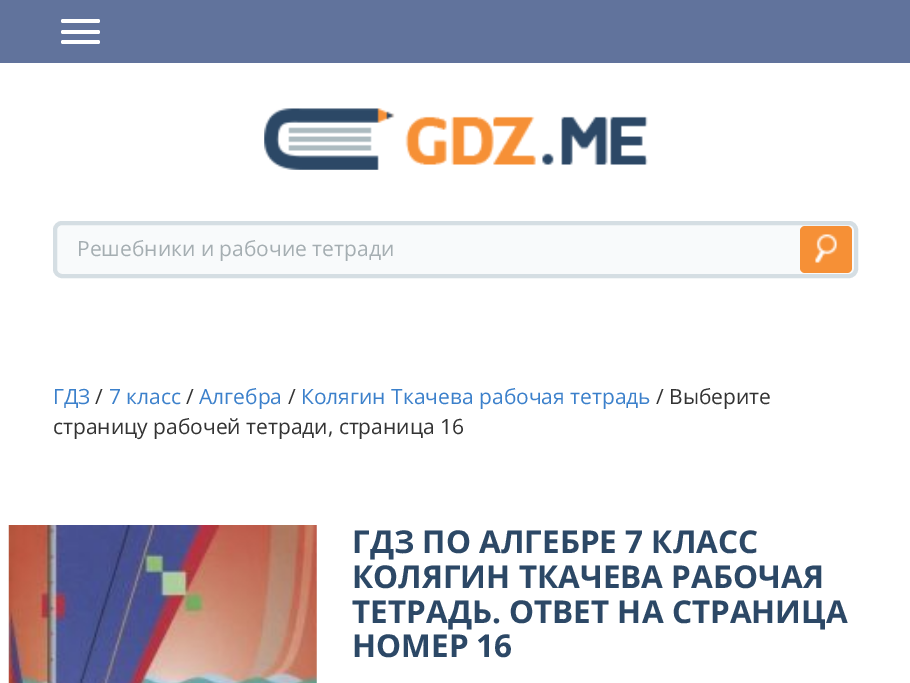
%!PS
<< /PageSize [910 683] >> setpagedevice
/rgb { dup -16 bitshift 255 div exch dup -8 bitshift 255 and 255 div exch 255 and 255 div setrgbcolor } def
/font { [ exch dup neg 0 0 3 -1 roll 0 0 ] selectfont } def
/text { moveto show } def
/roundrect { 5 dict begin { /r /h /w /y /x } { exch def } forall
  x r add y moveto x w add y 2 copy h add r arct x w add y h add x 1 index r arct
  x y h add x y r arct x y 2 copy exch w add exch r arct closepath end } def
/picture { 5 dict begin { /h /w /y /x /name } { exch def } forall
  gsave x y translate w h scale
  w h 8 [w 0 0 h 0 0] name (r) file false 3 colorimage grestore end } def
0 683 translate 1 -1 scale
4 setmiterlimit
/s1 { /OpenSans-Regular 21 font 16#A5AEB2 rgb } def
/s2 { /OpenSans-Regular 21 font 16#3B80CB rgb } def
/s3 { /OpenSans-Regular 21 font 16#333333 rgb } def
/s4 { /OpenSans-Bold 31.5 font 16#2C4866 rgb } def
16#61739C rgb
0 0 910 683 rectfill
16#FFFFFF rgb
61 19 39 4 2 roundrect fill
61 30 39 4 2 roundrect fill
61 40 39 4 2 roundrect fill
0 63 910 620 rectfill
(pic1.raw) 264 108 384 62 picture
16#F8FAFB rgb
55 223 801 53 7 roundrect gsave fill grestore
16#D5DEE3 rgb
4 setlinewidth
stroke
s1
(Решебники и рабочие тетради) 77 256 text
16#F69036 rgb
800 226 52 47 5 roundrect fill
(pic2.raw) 815 234 23 29 picture
s2
(ГДЗ) 53 404 text
s3
(/) 95 404 text
s2
(7 класс) 109 404 text
s3
(/) 186 404 text
s2
(Алгебра) 199 404 text
s3
(/) 288 404 text
s2
(Колягин Ткачева рабочая тетрадь) 301 404 text
s3
(/ Выберите) 656 404 text
(страницу рабочей тетради, страница 16) 53 434 text
(pic3.raw) 8 525 309 158 picture
s4
(ГДЗ ПО АЛГЕБРЕ 7 КЛАСС) 352 553 text
(КОЛЯГИН ТКАЧЕВА РАБОЧАЯ) 352 588 text
(ТЕТРАДЬ. ОТВЕТ НА СТРАНИЦА) 352 623 text
(НОМЕР 16) 352 657 text
showpage
